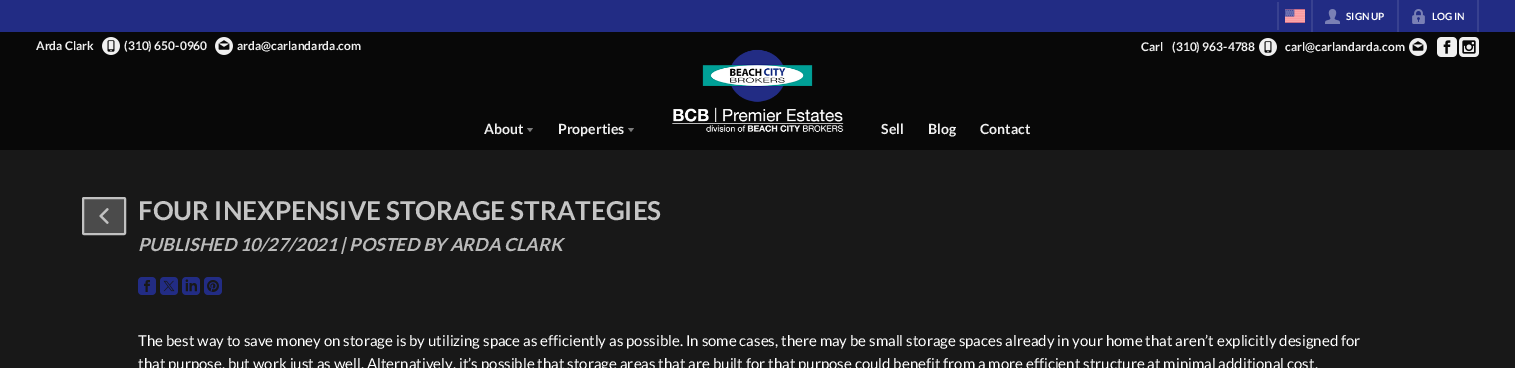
%!PS
<< /PageSize [1515 368] >> setpagedevice
/rgb { dup -16 bitshift 255 div exch dup -8 bitshift 255 and 255 div exch 255 and 255 div setrgbcolor } def
/font { [ exch dup neg 0 0 3 -1 roll 0 0 ] selectfont } def
/text { moveto show } def
/roundrect { 5 dict begin { /r /h /w /y /x } { exch def } forall
  x r add y moveto x w add y 2 copy h add r arct x w add y h add x 1 index r arct
  x y h add x y r arct x y 2 copy exch w add exch r arct closepath end } def
/picture { 5 dict begin { /h /w /y /x /name } { exch def } forall
  gsave x y translate w h scale
  w h 8 [w 0 0 h 0 0] name (r) file false 3 colorimage grestore end } def
0 368 translate 1 -1 scale
4 setmiterlimit
/s1 { /Lato-Bold 10 font 16#FFFFFF rgb } def
/s2 { /Lato-Bold 12 font 16#F0F0F0 rgb } def
/s3 { /Lato-Bold 14 font 16#F0F0F0 rgb } def
/s4 { /Lato-Bold 26 font 16#C5C5C5 rgb } def
/s5 { /Lato-BoldItalic 18 font 16#BABABA rgb } def
/s6 { /Lato-Regular 15 font 16#FFFFFF rgb } def
16#181818 rgb
0 0 1515 368 rectfill
16#222C84 rgb
0 0 1515 32 rectfill
16#384190 rgb
1277 2 2 28 rectfill
(pic1.raw) 1285 9 20 14 picture
1477 0 2 32 rectfill
1311 0 2 32 rectfill
(pic2.raw) 1325 9 15 15 picture
s1
(SIGN UP) 1346 20 text
16#384190 rgb
1397 0 2 32 rectfill
(pic3.raw) 1412 9 13 15 picture
s1
(LOG IN) 1432 20 text
16#080808 rgb
0 32 1515 118 rectfill
s2
(Arda Clark) 36 50 text
(pic4.raw) 102 37 18 18 picture
(\(310\) 650-0960) 124 50 text
(pic5.raw) 215 37 18 18 picture
(arda@carlandarda.com) 237 50 text
s3
(About) 484 134 text
16#7C7C7C rgb
527 128 moveto 533 128 lineto 530 132 lineto closepath fill
s3
(Properties) 558 134 text
16#7C7C7C rgb
628 128 moveto 634 128 lineto 631 132 lineto closepath fill
(pic6.raw) 672 49 172 83 picture
s2
(Carl) 1141 51 text
(\(310\) 963-4788) 1172 51 text
(pic4.raw) 1259 38 18 18 picture
(carl@carlandarda.com) 1285 51 text
(pic5.raw) 1409 38 18 18 picture
(pic7.raw) 1437 37 20 20 picture
(pic8.raw) 1459 37 20 20 picture
s3
(Sell) 881 134 text
(Blog) 928 134 text
(Contact) 980 134 text
16#4B4B4B rgb
83 198 42 36 1 roundrect gsave fill grestore
16#C1C1C1 rgb
2 setlinewidth
stroke
(pic9.raw) 99 208 10 16 picture
s4
(FOUR INEXPENSIVE STORAGE STRATEGIES) 138 220 text
s5
(PUBLISHED 10/27/2021 | POSTED BY ARDA CLARK) 138 251 text
(pic10.raw) 138 277 18 18 picture
(pic11.raw) 160 277 18 18 picture
(pic12.raw) 182 277 18 18 picture
(pic13.raw) 204 277 18 18 picture
s6
(The best way to save money on storage is by utilizing space as efficiently as possible. In some cases, there may be small storage spaces already in your home that aren’t explicitly designed for) 138 346 text
(that purpose, but work just as well. Alternatively, it’s possible that storage areas that are built for that purpose could benefit from a more efficient structure at minimal additional cost.) 138 369 text
showpage
